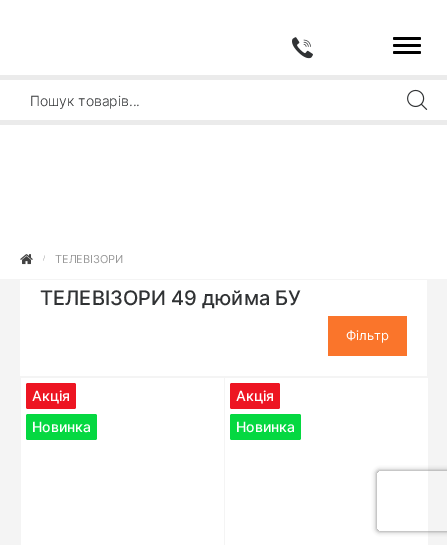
%!PS
<< /PageSize [447 545] /PageUsesTransparency true >> setpagedevice
/rgb { dup -16 bitshift 255 div exch dup -8 bitshift 255 and 255 div exch 255 and 255 div setrgbcolor } def
/font { [ exch dup neg 0 0 3 -1 roll 0 0 ] selectfont } def
/text { moveto show } def
/alpha { dup .setfillconstantalpha .setstrokeconstantalpha } def
/roundrect { 5 dict begin { /r /h /w /y /x } { exch def } forall
  x r add y moveto x w add y 2 copy h add r arct x w add y h add x 1 index r arct
  x y h add x y r arct x y 2 copy exch w add exch r arct closepath end } def
/shadow { 12 dict begin { /a /b /q /h /w /y /x } { exch def } forall gsave /was 0 def
  9 -2 -9 { dup b mul 4 div /e exch def 1 sub .425 mul 2.718 exch exp 1 add a .99 .min exch div /now exch def
    1 1 now sub 1 was sub div sub alpha /was now def
    w h .min e 2 mul add 0 gt { x e sub y e sub w e 2 mul add h e 2 mul add
      q e add b .6 mul add w h .min 2 div e add .min 0 .max roundrect fill } if } for grestore end } def
/picture { 5 dict begin { /h /w /y /x /name } { exch def } forall
  gsave x y translate w h scale
  w h 8 [w 0 0 h 0 0] name (r) file false 3 colorimage grestore end } def
0 .pushpdf14devicefilter
0 545 translate 1 -1 scale
4 setmiterlimit
/s1 { /Inter-Light 14 font 16#303234 rgb } def
/s2 { /Inter-Regular 6 font 16#999999 rgb } def
/s3 { /Inter-Regular 11 font 16#999999 rgb } def
/s4 { /Inter-Medium 20 font 16#303234 rgb } def
/s5 { /Inter-Regular 13 font 16#FFFFFF rgb } def
/s6 { /Inter-Medium 14 font 16#FFFFFF rgb } def
16#FFFFFF rgb
0 0 447 545 rectfill
(pic1.raw) 292 37 21 22 picture
16#000000 rgb
393 44 28 3 1.5 roundrect fill
393 37 28 3 1.5 roundrect fill
393 51 28 3 1.5 roundrect fill
16#EBEBEB rgb
0 75 447 50 rectfill
16#FFFFFF rgb
0 80 447 40 rectfill
s1
(Пошук товарів...) 30 106 text
(pic2.raw) 407 89 21 21 picture
(pic3.raw) 20 254 13 11 picture
s2
(/) 43 260 text
s3
(ТЕЛЕВІЗОРИ) 55 263 text
16#F4F4F4 rgb
0 279 447 266 rectfill
16#FFFFFF rgb
20 280 407 96 rectfill
s4
(ТЕЛЕВІЗОРИ 49 дюйма БУ) 40 305 text
16#FA752B rgb
328 316 79 40 rectfill
s5
(Фільтр) 346 340 text
21 378 203 167 rectfill
16#ED1522 rgb
26 383 50 26 2 roundrect fill
s6
(Акція) 32 401 text
16#05D841 rgb
26 414 71 26 2 roundrect fill
s6
(Новинка) 32 432 text
225 378 203 167 rectfill
16#ED1522 rgb
230 383 50 26 2 roundrect fill
s6
(Акція) 236 401 text
16#05D841 rgb
230 414 71 26 2 roundrect fill
s6
(Новинка) 236 432 text
gsave
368 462 moveto 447 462 lineto 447 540 lineto 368 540 lineto closepath 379 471 moveto 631 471 lineto 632 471 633 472 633 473 curveto 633 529 lineto 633 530 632 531 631 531 curveto 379 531 lineto 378 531 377 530 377 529 curveto 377 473 lineto 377 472 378 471 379 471 curveto closepath eoclip newpath
16#808080 rgb
377 471 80 60 2 2.5 1 shadow
grestore
.poppdf14devicefilter showpage
